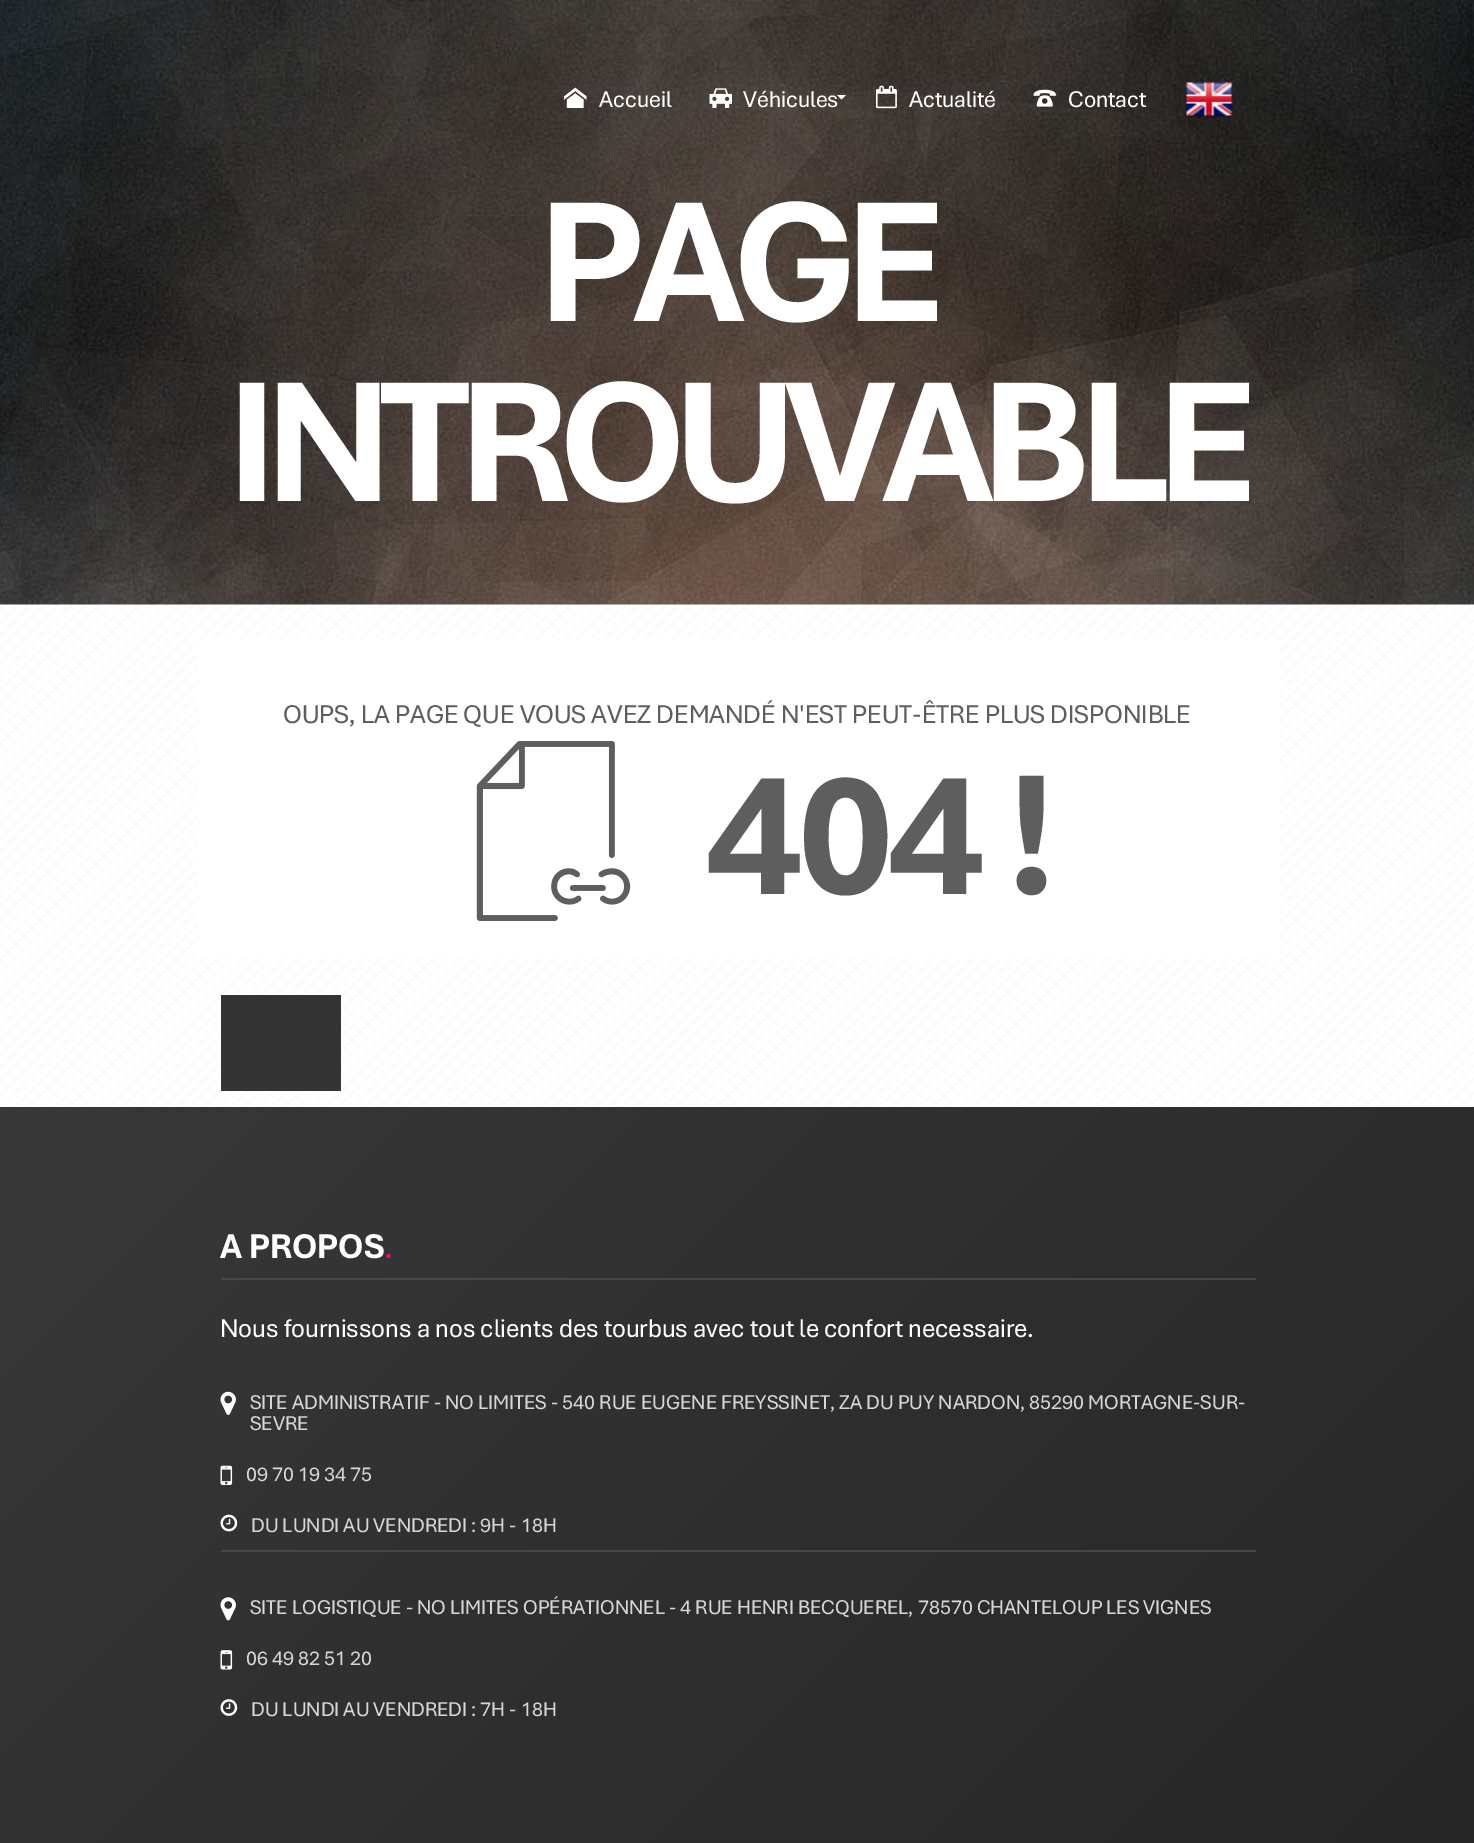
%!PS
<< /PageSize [1474 1843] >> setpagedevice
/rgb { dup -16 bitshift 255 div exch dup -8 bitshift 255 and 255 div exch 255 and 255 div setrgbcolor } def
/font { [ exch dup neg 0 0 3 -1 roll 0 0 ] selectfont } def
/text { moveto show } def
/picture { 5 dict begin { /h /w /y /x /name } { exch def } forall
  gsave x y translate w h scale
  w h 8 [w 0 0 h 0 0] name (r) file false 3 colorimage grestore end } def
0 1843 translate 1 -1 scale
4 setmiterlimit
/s1 { /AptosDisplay-Regular 24 font 16#FFFFFF rgb } def
/s2 { /AptosDisplay-Regular 27 font 16#5E5E5E rgb } def
/s3 { /AptosDisplay-Bold 36 font 16#FFFFFF rgb } def
/s4 { /AptosDisplay-Regular 36 font 16#ED0875 rgb } def
/s5 { /AptosDisplay-Regular 27 font 16#FFFFFF rgb } def
/s6 { /AptosDisplay-Regular 21 font 16#D7D7D7 rgb } def
16#FFFFFF rgb
0 0 1474 1843 rectfill
(pic7.raw) 0 604 1474 503 picture
(pic1.raw) 0 0 1474 605 picture
(pic2.raw) 564 87 23 21 picture
s1
(Accueil) 599 107 text
(pic3.raw) 709 88 23 20 picture
(Véhicules) 743 107 text
837 95 moveto 841.5 99.5 lineto 846 95 lineto closepath fill
(pic4.raw) 876 85 21 24 picture
(Actualité) 909 107 text
(pic5.raw) 1033 89 23 18 picture
(Contact) 1068 107 text
(pic6.raw) 1185 82 48 36 picture
/AptosDisplay-Bold 180 font
539 321 moveto -10.5 0 (PAGE) ashow
228 501 moveto -10.5 0 (INTROUVABLE) ashow
198 639 1080 318 rectfill
s2
(OUPS, LA PAGE QUE VOUS AVEZ DEMANDÉ N'EST PEUT-ÊTRE PLUS DISPONIBLE) 283 723 text
(pic8.raw) 476 741 155 180 picture
/AptosDisplay-Bold 180 font
706 894 moveto -6 0 (404 !) ashow
gsave 0 1107 moveto 1474 1107 lineto 1474 1843 lineto 0 1843 lineto closepath clip newpath
<< /ShadingType 2 /ColorSpace /DeviceRGB /Coords [57 1050 1418 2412] /Extend [true true] /Function << /FunctionType 2 /Domain [0 1] /C0 [0.22 0.22 0.22] /C1 [0.133 0.133 0.133] /N 1 >> >> shfill grestore
16#343434 rgb
221 995 120 96 rectfill
s3
(A PROPOS) 220 1258 text
s4
(.) 384 1258 text
16#474747 rgb
221 1278 1035 2 rectfill
s5
(Nous fournissons a nos clients des tourbus avec tout le confort necessaire.) 220 1337 text
(pic9.raw) 220 1391 16 24 picture
s6
(SITE ADMINISTRATIF - NO LIMITES - 540 RUE EUGENE FREYSSINET, ZA DU PUY NARDON, 85290 MORTAGNE-SUR-) 250 1409 text
(SEVRE) 250 1430 text
(pic10.raw) 220 1465 13 20 picture
(09 70 19 34 75) 246 1481 text
(pic11.raw) 220 1514 18 18 picture
(DU LUNDI AU VENDREDI : 9H - 18H) 251 1532 text
16#474747 rgb
221 1550 1035 2 rectfill
(pic12.raw) 220 1597 16 24 picture
s6
(SITE LOGISTIQUE - NO LIMITES OPÉRATIONNEL - 4 RUE HENRI BECQUEREL, 78570 CHANTELOUP LES VIGNES) 250 1614 text
(pic13.raw) 220 1650 13 20 picture
(06 49 82 51 20) 246 1665 text
(pic14.raw) 220 1699 18 17 picture
(DU LUNDI AU VENDREDI : 7H - 18H) 251 1716 text
showpage
